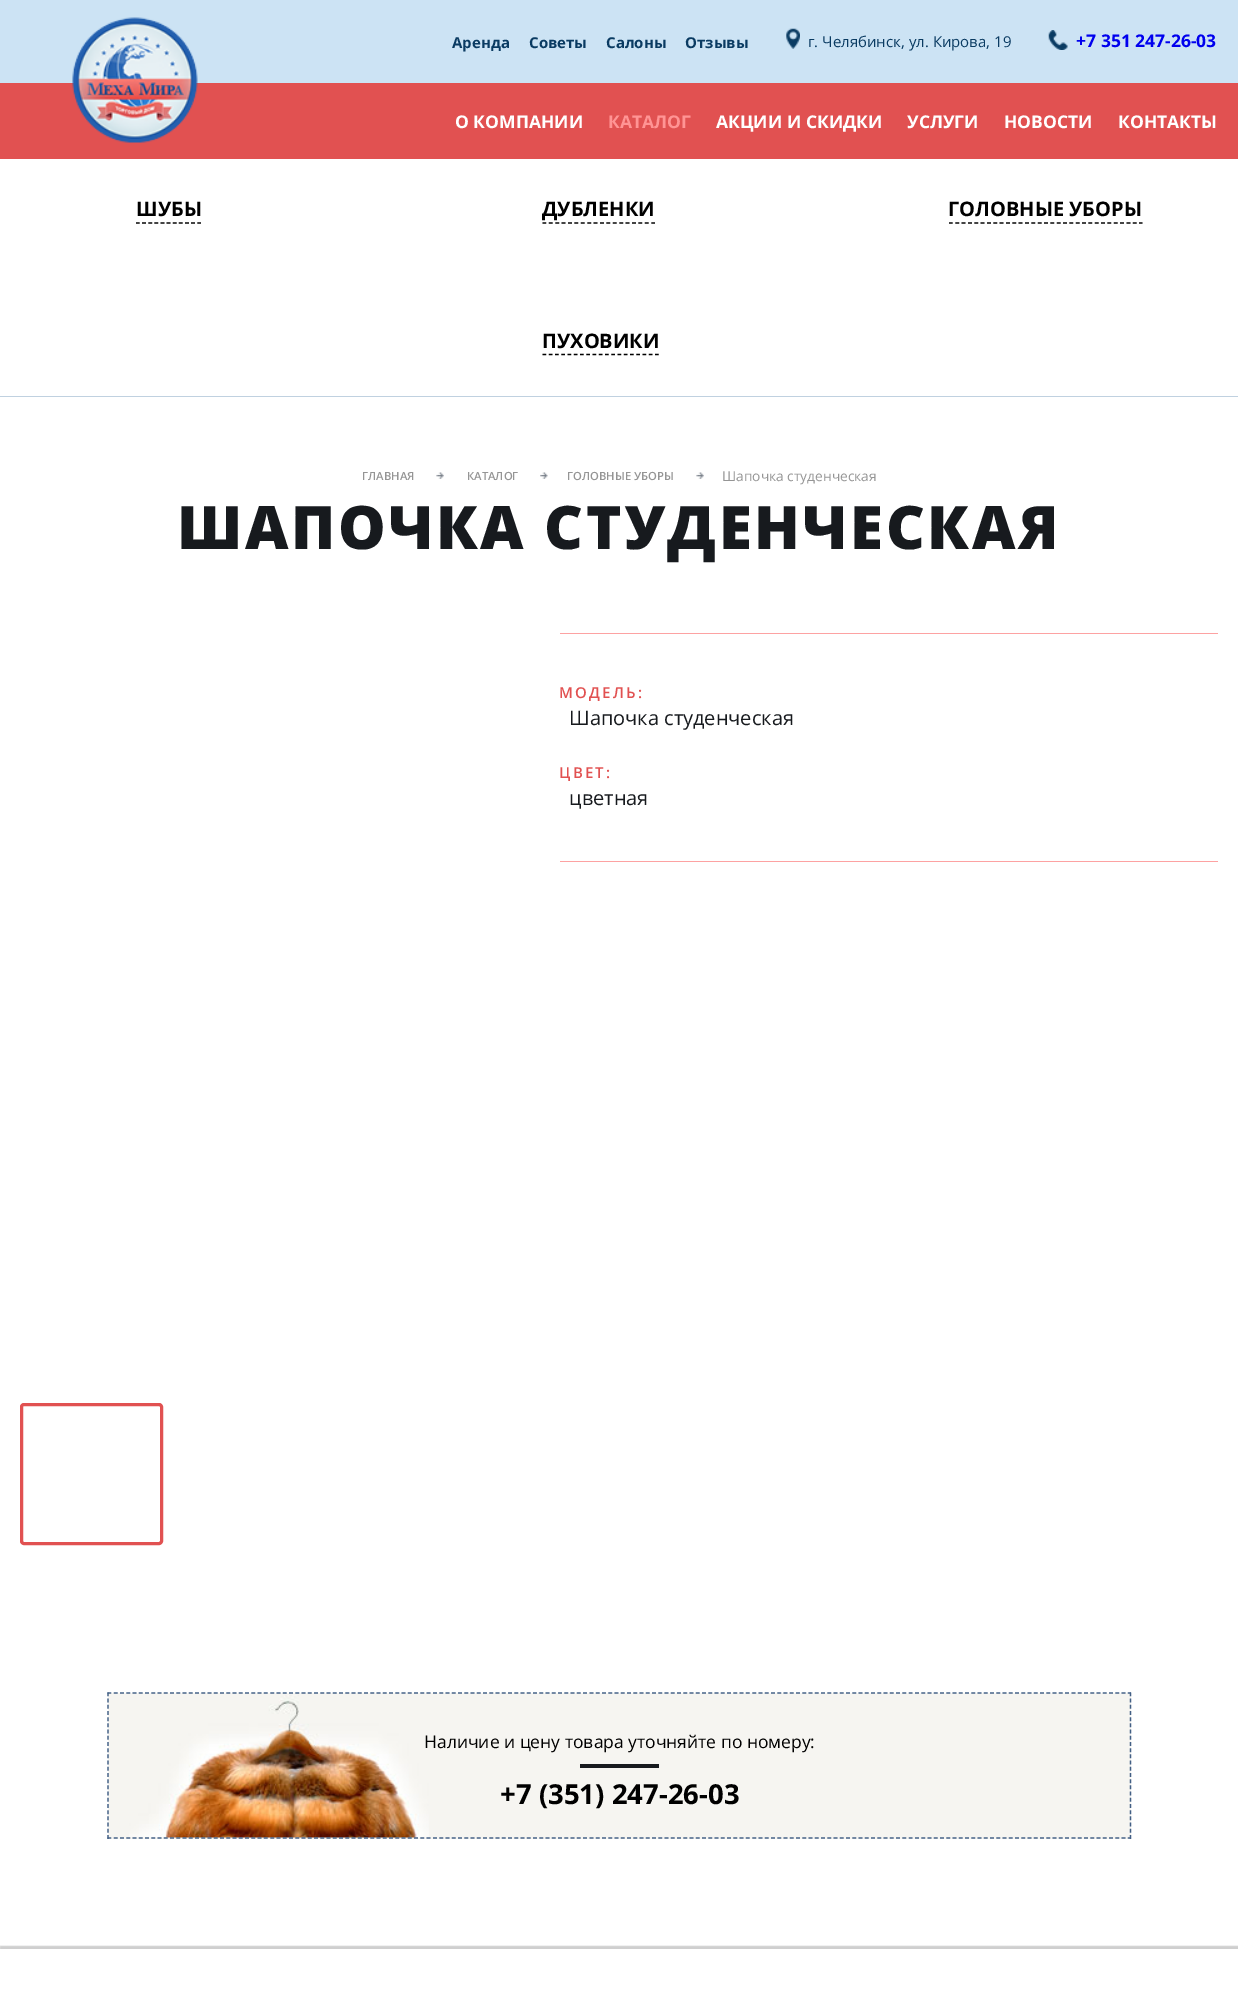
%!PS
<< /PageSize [1238 1995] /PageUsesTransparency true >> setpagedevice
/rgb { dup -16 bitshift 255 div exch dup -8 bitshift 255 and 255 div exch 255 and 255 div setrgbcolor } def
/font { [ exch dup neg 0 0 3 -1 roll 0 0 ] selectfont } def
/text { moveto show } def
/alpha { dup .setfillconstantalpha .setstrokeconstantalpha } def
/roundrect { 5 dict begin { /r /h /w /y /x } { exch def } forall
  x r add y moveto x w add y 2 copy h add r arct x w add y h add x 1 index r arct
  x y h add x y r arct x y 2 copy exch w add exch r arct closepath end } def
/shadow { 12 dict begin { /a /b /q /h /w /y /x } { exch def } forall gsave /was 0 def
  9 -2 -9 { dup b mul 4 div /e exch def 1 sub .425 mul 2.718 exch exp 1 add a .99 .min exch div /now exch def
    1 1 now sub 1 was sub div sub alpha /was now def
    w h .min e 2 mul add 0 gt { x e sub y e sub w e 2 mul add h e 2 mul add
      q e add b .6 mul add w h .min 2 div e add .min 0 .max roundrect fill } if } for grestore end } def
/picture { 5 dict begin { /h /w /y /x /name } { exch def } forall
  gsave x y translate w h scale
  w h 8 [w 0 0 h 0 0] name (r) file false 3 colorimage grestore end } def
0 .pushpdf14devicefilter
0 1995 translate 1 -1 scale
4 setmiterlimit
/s1 { /OpenSans-Bold 15 font 16#0A3B62 rgb } def
/s2 { /OpenSans-Regular 15 font 16#0A3B62 rgb } def
/s3 { /OpenSans-Bold 17.5 font 16#0000EE rgb } def
/s4 { /OpenSans-Bold 17.5 font 16#FFFFFF rgb } def
/s5 { /OpenSans-Bold 17.5 font 16#FF9494 rgb } def
/s6 { /OpenSans-Bold 20 font 16#000000 rgb } def
/s7 { /OpenSans-SemiBold 11.25 font 16#959595 rgb } def
/s8 { /OpenSans-Regular 13.75 font 16#959595 rgb } def
/s9 { /OpenSans-Regular 20 font 16#171A1E rgb } def
/s10 { /OpenSans-Regular 17.5 font 16#000000 rgb } def
/s11 { /OpenSans-Bold 27.5 font 16#000000 rgb } def
16#FFFFFF rgb
0 0 1238 1995 rectfill
16#CCE3F4 rgb
0 0 1238 83 rectfill
s1
(Аренда) 452 48 text
(Советы) 529 48 text
(Салоны) 606 48 text
(Отзывы) 685 48 text
(pic1.raw) 786 28 14 21 picture
s2
(г. Челябинск, ул. Кирова, 19) 808 47 text
(pic2.raw) 1048 30 20 20 picture
s3
(+7 351 247-26-03) 1076 47 text
16#E15151 rgb
0 83 1238 76 rectfill
(pic3.raw) 72 17 126 126 picture
s4
(О КОМПАНИИ) 455 128 text
s5
(КАТАЛОГ) 608 128 text
s4
(АКЦИИ И СКИДКИ) 716 128 text
(УСЛУГИ) 907 128 text
(НОВОСТИ) 1004 128 text
(КОНТАКТЫ) 1118 128 text
16#C0D1E0 rgb
0 396 1238 1 rectfill
16#000000 rgb
1.2 setlinewidth
[3.75 2.38] 0 setdash
136 223 moveto 201 223 lineto stroke
s6
(ШУБЫ) 136 216 text
[3.75 2.65] 0 setdash
542.5 223 moveto 655 223 lineto stroke
(ДУБЛЕНКИ) 542 216 text
[3.75 2.59] 0 setdash
949 223 moveto 1142.5 223 lineto stroke
(ГОЛОВНЫЕ УБОРЫ) 948 216 text
[3.75 2.5] 0 setdash
542.5 354.5 moveto 659 354.5 lineto stroke
(ПУХОВИКИ) 542 348 text
s7
(ГЛАВНАЯ) 362 480 text
(pic4.raw) 436 472 8 7 picture
(КАТАЛОГ) 467 480 text
(pic5.raw) 540 472 8 7 picture
(ГОЛОВНЫЕ УБОРЫ) 567 480 text
(pic4.raw) 696 472 8 7 picture
s8
(Шапочка студенческая) 722 481 text
/OpenSans-ExtraBold 60 font
16#171A1E rgb
177 549 moveto 2.5 0 (ШАПОЧКА СТУДЕНЧЕСКАЯ) ashow
16#FDA2A2 rgb
560 633 658 1 rectfill
560 861 658 1 rectfill
/OpenSans-SemiBold 15 font
16#E15151 rgb
559 698 moveto 2.25 0 (МОДЕЛЬ:) ashow
s9
(Шапочка студенческая) 569 725 text
/OpenSans-SemiBold 15 font
16#E15151 rgb
559 778 moveto 2.25 0 (ЦВЕТ:) ashow
s9
(цветная) 569 805 text
16#E15151 rgb
3 setlinewidth
[] 0 setdash
21.5 1404.5 140 139 2.5 roundrect stroke
16#F6F5F1 rgb
108 1693 1023 146 rectfill
(pic6.raw) 129 1695 300 143 picture
16#425F85 rgb
1.2 setlinewidth
[3.75 2.51] 0 setdash
107.5 1693 moveto 1131 1693 lineto stroke
[3.75 2.45] 0 setdash
1130.5 1692.5 moveto 1130.5 1839 lineto stroke
[3.75 2.51] 0 setdash
107.5 1838 moveto 1131 1838 lineto stroke
[3.75 2.45] 0 setdash
108 1692.5 moveto 108 1839 lineto stroke
s10
(Наличие и цену товара уточняйте по номеру:) 424 1748 text
16#171A1E rgb
580 1764 79 4 rectfill
s11
(+7 \(351\) 247-26-03) 500 1804 text
gsave
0 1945 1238 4 rectclip
16#010101 rgb
0 1946 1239 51 0 0.5 0.19 shadow
grestore
.poppdf14devicefilter showpage
